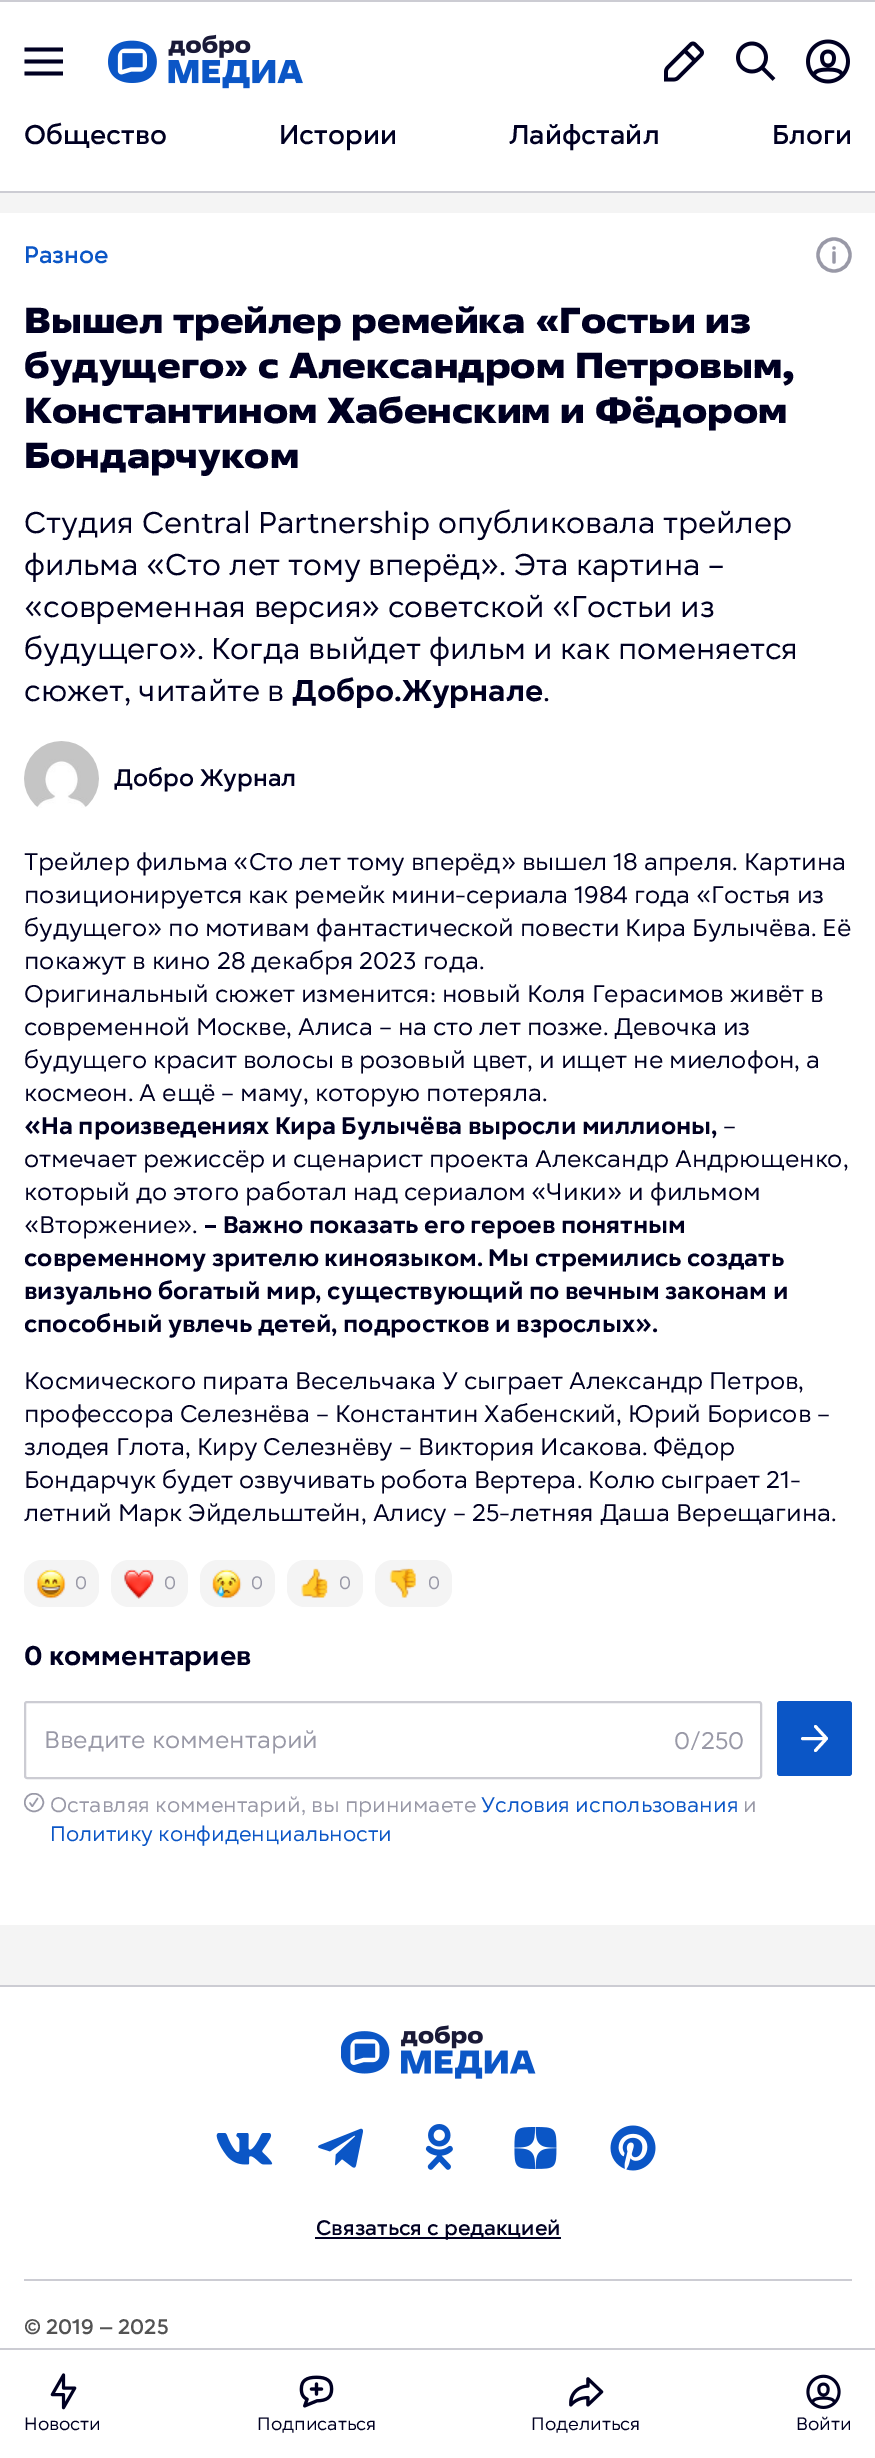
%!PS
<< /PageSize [875 2458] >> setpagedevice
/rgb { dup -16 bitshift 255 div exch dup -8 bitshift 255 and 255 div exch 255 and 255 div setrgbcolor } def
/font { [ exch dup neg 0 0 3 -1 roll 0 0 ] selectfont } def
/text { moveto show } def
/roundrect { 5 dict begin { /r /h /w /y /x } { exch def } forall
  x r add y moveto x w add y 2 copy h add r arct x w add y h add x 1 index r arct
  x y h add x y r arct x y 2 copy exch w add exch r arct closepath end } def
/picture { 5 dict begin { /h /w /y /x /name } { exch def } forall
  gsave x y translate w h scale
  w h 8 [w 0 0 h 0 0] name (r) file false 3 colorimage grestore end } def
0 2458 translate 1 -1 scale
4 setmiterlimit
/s1 { /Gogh-Medium 27 font 16#000022 rgb } def
/s2 { /Gogh-Medium 24 font 16#0B56C6 rgb } def
/s3 { /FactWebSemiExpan-ExtraBold 36 font 16#000022 rgb } def
/s4 { /Gogh-Regular 30 font 16#000022 rgb } def
/s5 { /Gogh-Bold 30 font 16#000022 rgb } def
/s6 { /Gogh-Medium 24 font 16#000022 rgb } def
/s7 { /Gogh-Regular 24 font 16#000022 rgb } def
/s8 { /Gogh-Bold 24 font 16#000022 rgb } def
/s9 { /Gogh-Regular 18 font 16#9999A7 rgb } def
/s10 { /Gogh-Bold 27 font 16#000022 rgb } def
/s11 { /Gogh-Regular 24 font 16#9999A7 rgb } def
/s12 { /Gogh-Regular 21 font 16#9999A7 rgb } def
/s13 { /Gogh-Regular 21 font 16#0B56C6 rgb } def
/s14 { /Gogh-Medium 21 font 16#000022 rgb } def
/s15 { /Gogh-Medium 21 font 16#535353 rgb } def
/s16 { /Gogh-Regular 18 font 16#000022 rgb } def
16#F4F4F4 rgb
0 0 875 2458 rectfill
16#FFFFFF rgb
0 2 875 189 rectfill
16#CCCCD3 rgb
0 0 875 2 rectfill
0 191 875 2 rectfill
16#000022 rgb
63 51.5 moveto 63 47.5 lineto 24.5 47.5 lineto 24.5 51.5 lineto closepath 63 59.5 moveto 63 63.5 lineto 24.5 63.5 lineto 24.5 59.5 lineto closepath 63 71.5 moveto 63 75.5 lineto 24.5 75.5 lineto 24.5 71.5 lineto closepath eofill
(pic1.raw) 108 34 195 55 picture
(pic2.raw) 664 41 40 41 picture
(pic3.raw) 736 41 40 40 picture
(pic4.raw) 806 39 44 45 picture
s1
(Общество) 24 144 text
(Истории) 279 144 text
(Лайфстайл) 509 144 text
(Блоги) 772 144 text
16#FFFFFF rgb
0 213 875 1712 rectfill
s2
(Разное) 24 263 text
16#9999A7 rgb
3.3 setlinewidth
1 setlinecap
1 setlinejoin
834 253 moveto 834 262 lineto 834 271 moveto 825 271 818 264 818 255 curveto 818 246 825 239 834 239 curveto 843 239 850 246 850 255 curveto 850 264 843 271 834 271 curveto closepath 834 248 moveto 834 248 lineto closepath stroke
s3
(Вышел трейлер ремейка «Гостьи из) 24 333 text
(будущего» с Александром Петровым,) 24 378 text
(Константином Хабенским и Фёдором) 24 423 text
(Бондарчуком) 24 468 text
s4
(Студия Central Partnership опубликовала трейлер) 24 533 text
(фильма «Сто лет тому вперёд». Эта картина –) 24 575 text
(«современная версия» советской «Гостьи из) 24 617 text
(будущего». Когда выйдет фильм и как поменяется) 24 659 text
(сюжет, читайте в) 24 701 text
s5
(Добро.Журнале) 292 701 text
s4
(.) 543 701 text
(pic5.raw) 24 741 75 67 picture
s6
(Добро Журнал) 114 786 text
s7
(Трейлер фильма «Сто лет тому вперёд» вышел 18 апреля. Картина) 24 870 text
(позиционируется как ремейк мини-сериала 1984 года «Гостья из) 24 903 text
(будущего» по мотивам фантастической повести Кира Булычёва. Её) 24 936 text
(покажут в кино 28 декабря 2023 года.) 24 969 text
(Оригинальный сюжет изменится: новый Коля Герасимов живёт в) 24 1002 text
(современной Москве, Алиса – на сто лет позже. Девочка из) 24 1035 text
(будущего красит волосы в розовый цвет, и ищет не миелофон, а) 24 1068 text
(космеон. А ещё – маму, которую потеряла.) 24 1101 text
s8
(«На произведениях Кира Булычёва выросли миллионы,) 24 1134 text
s7
(–) 723 1134 text
(отмечает режиссёр и сценарист проекта Александр Андрющенко,) 24 1167 text
(который до этого работал над сериалом «Чики» и фильмом) 24 1200 text
(«Вторжение».) 24 1233 text
s8
(– Важно показать его героев понятным) 204 1233 text
(современному зрителю киноязыком. Мы стремились создать) 24 1266 text
(визуально богатый мир, существующий по вечным законам и) 24 1299 text
(способный увлечь детей, подростков и взрослых».) 24 1332 text
s7
(Космического пирата Весельчака У сыграет Александр Петров,) 24 1389 text
(профессора Селезнёва – Константин Хабенский, Юрий Борисов –) 24 1422 text
(злодея Глота, Киру Селезнёву – Виктория Исакова. Фёдор) 24 1455 text
(Бондарчук будет озвучивать робота Вертера. Колю сыграет 21-) 24 1488 text
(летний Марк Эйдельштейн, Алису – 25-летняя Даша Верещагина.) 24 1521 text
16#F4F4F4 rgb
24 1560 75 47 18 roundrect fill
(pic6.raw) 36 1569 30 30 picture
s9
(0) 75 1589 text
16#F4F4F4 rgb
111 1560 77 47 18 roundrect fill
(pic7.raw) 124 1569 30 30 picture
s9
(0) 164 1589 text
16#F4F4F4 rgb
200 1560 75 47 18 roundrect fill
(pic8.raw) 212 1569 30 30 picture
s9
(0) 251 1589 text
16#F4F4F4 rgb
287 1560 76 47 18 roundrect fill
(pic9.raw) 301 1568 28 30 picture
s9
(0) 339 1589 text
16#F4F4F4 rgb
375 1560 77 47 18 roundrect fill
(pic10.raw) 389 1568 28 30 picture
s9
(0) 428 1589 text
s10
(0 комментариев) 24 1665 text
16#CCCCD3 rgb
2 setlinewidth
0 setlinecap
0 setlinejoin
25 1702 736 76 2 roundrect stroke
s11
(Введите комментарий) 44 1748 text
(0/250) 674 1749 text
16#0B56C6 rgb
777 1701 75 75 3 roundrect fill
16#FFFFFF rgb
3 setlinewidth
1 setlinecap
1 setlinejoin
802.5 1738.5 moveto 826.5 1738.5 lineto 826.5 1738.5 moveto 815.5 1726.5 lineto 826.5 1738.5 moveto 815.5 1750.5 lineto stroke
16#9999A7 rgb
1.5 setlinewidth
0 setlinecap
0 setlinejoin
24.75 1793.75 18.5 17.5 8.75 roundrect stroke
1 setlinecap
30 1803 moveto 32 1806 lineto 32.5 1806 lineto 37.5 1798.5 lineto stroke
s12
(Оставляя комментарий, вы принимаете) 50 1812 text
s13
(Условия использования) 481 1812 text
s12
(и) 743 1812 text
s13
(Политику конфиденциальности) 50 1841 text
16#FFFFFF rgb
0 1987 875 361 rectfill
16#CCCCD3 rgb
0 1985 875 2 rectfill
(pic11.raw) 341 2025 195 54 picture
(pic12.raw) 216 2133 57 32 picture
(pic13.raw) 318 2128 45 40 picture
(pic14.raw) 425 2124 28 46 picture
(pic15.raw) 514 2127 43 42 picture
(pic16.raw) 610 2125 46 46 picture
16#000022 rgb
315 2237 246 2 rectfill
s14
(Связаться с редакцией) 316 2235 text
16#CCCCD3 rgb
24 2279 828 2 rectfill
s15
(© 2019 — 2025) 24 2334 text
16#FFFFFF rgb
0 2350 875 108 rectfill
16#CCCCD3 rgb
0 2348 875 2 rectfill
(pic17.raw) 50 2373 27 37 picture
s16
(Новости) 24 2430 text
(pic18.raw) 299 2375 35 33 picture
(Подписаться) 257 2430 text
(pic19.raw) 569 2377 35 30 picture
(Поделиться) 531 2430 text
(pic20.raw) 806 2374 35 35 picture
(Войти) 796 2430 text
showpage
